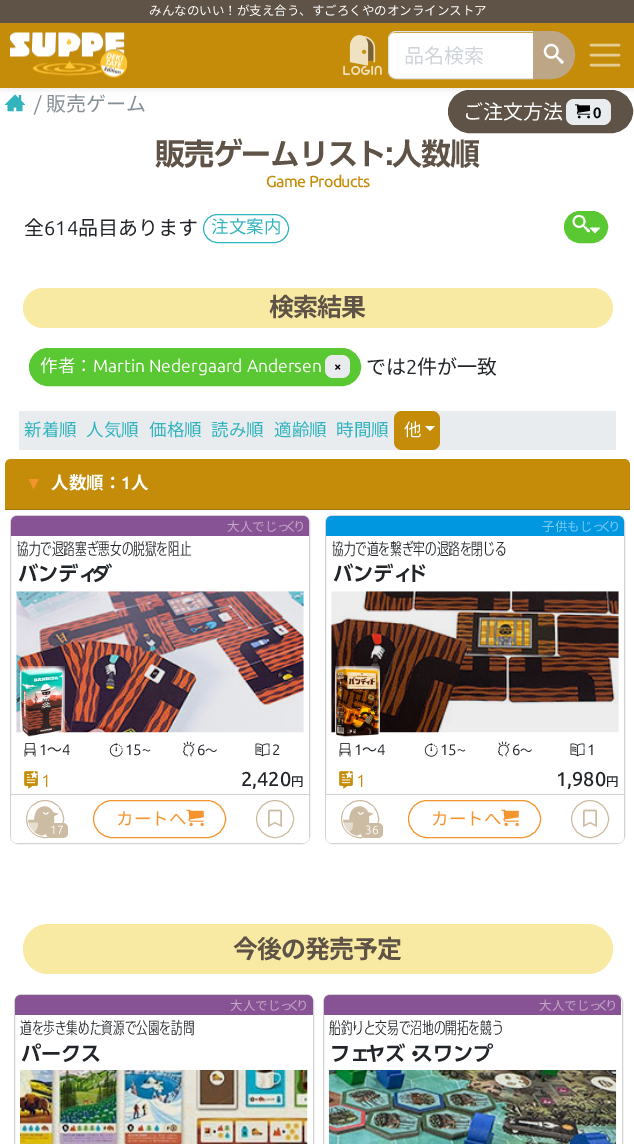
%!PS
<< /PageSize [634 1144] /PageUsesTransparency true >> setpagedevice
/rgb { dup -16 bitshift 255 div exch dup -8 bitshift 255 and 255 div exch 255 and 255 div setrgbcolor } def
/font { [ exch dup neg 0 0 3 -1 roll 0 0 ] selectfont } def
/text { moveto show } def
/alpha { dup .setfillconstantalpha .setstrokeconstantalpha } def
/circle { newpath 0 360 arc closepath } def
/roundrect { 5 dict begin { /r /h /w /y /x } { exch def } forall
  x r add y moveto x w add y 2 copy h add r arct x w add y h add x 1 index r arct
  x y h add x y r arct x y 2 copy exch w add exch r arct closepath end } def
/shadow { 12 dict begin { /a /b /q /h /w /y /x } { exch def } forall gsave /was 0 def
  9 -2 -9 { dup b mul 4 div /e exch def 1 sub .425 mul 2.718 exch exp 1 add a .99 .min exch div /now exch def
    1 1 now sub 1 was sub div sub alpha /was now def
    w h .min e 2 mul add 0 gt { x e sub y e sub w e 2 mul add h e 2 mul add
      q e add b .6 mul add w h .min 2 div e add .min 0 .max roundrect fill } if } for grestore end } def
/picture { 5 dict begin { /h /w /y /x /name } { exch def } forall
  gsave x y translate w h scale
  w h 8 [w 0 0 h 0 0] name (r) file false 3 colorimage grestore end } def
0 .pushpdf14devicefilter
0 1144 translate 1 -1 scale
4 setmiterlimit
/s1 { /NotoSansJP-Regular 12.5 font 16#FFFFFF rgb } def
/s2 { /NotoSansJP-Regular 20 font 16#CED4DA rgb } def
/s3 { /Ubuntu-Regular 20 font 16#868E96 rgb } def
/s4 { /NotoSansJP-Regular 20 font 16#868E96 rgb } def
/s5 { /NotoSansJP-Regular 20 font 16#FFFFFF rgb } def
/s6 { /Ubuntu-Bold 15 font 16#000000 rgb } def
/s7 { /NotoSansJP-Regular 20 font 16#212529 rgb } def
/s8 { /Ubuntu-Regular 20 font 16#212529 rgb } def
/s9 { /NotoSansJP-Regular 17.5 font 16#32B4BE rgb } def
/s10 { /NotoSansJP-Regular 17.5 font 16#FFFFFF rgb } def
/s11 { /Ubuntu-Regular 17.5 font 16#FFFFFF rgb } def
/s12 { /Ubuntu-Bold 13 font 16#000000 rgb } def
/s13 { /LiberationSans-Bold 17.5 font 16#F4942E rgb } def
/s14 { /NotoSansJP-Bold 17.5 font 16#FFFFFF rgb } def
/s15 { /Ubuntu-Bold 17.5 font 16#FFFFFF rgb } def
/s16 { /NotoSansJP-Regular 12.5 font 16#C4A9CA rgb } def
/s17 { /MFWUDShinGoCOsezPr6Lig-Light 16.6 font 16#212529 rgb } def
/s18 { /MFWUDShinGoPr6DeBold-SemiBold 20 font 16#212529 rgb } def
/s19 { /Ubuntu-Regular 15 font 16#212529 rgb } def
/s20 { /NotoSansJP-Regular 15 font 16#212529 rgb } def
/s21 { /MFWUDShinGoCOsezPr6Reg-Regular 12.5 font 16#212529 rgb } def
/s22 { /NotoSansJP-Regular 12.5 font 16#212529 rgb } def
/s23 { /Ubuntu-Regular 17.5 font 16#C48C08 rgb } def
/s24 { /Ubuntu-Medium 20 font 16#212529 rgb } def
/s25 { /NotoSansJP-Medium 12.5 font 16#212529 rgb } def
/s26 { /NotoSansJP-Regular 17.5 font 16#F4942E rgb } def
/s27 { /Ubuntu-Regular 12 font 16#FFFFFF rgb } def
/s28 { /NotoSansJP-Regular 12.5 font 16#80CBF0 rgb } def
16#FFFFFF rgb
0 0 634 1144 rectfill
(pic4.raw) 5 94 20 18 picture
16#5E5346 rgb
448.5 90.5 184 42 21 roundrect gsave fill grestore
stroke
16#000000 rgb
0 3 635 87 0 2.5 0.07 shadow
16#5E5346 rgb
0 0 634 23 rectfill
s1
(みんなのいい！が支え合う、すごろくやのオンラインストア) 149 15 text
16#C48C08 rgb
0 23 634 65 rectfill
(pic1.raw) 10 32 118 46 picture
(pic2.raw) 343 35 39 40 picture
16#FFFFFF rgb
395 33 moveto 533 33 lineto 533 78 lineto 395 78 lineto 391.5 78 389 75.5 389 72 curveto 389 39 lineto 389 35.5 391.5 33 395 33 curveto closepath fill
16#DEE2E6 rgb
396 31.5 moveto 533.5 31.5 lineto 533.5 78.5 lineto 396 78.5 lineto 392 78.5 388.5 75 388.5 71 curveto 388.5 39 lineto 388.5 35 392 31.5 396 31.5 curveto closepath stroke
s2
(品名検索) 404 63 text
16#BCA685 rgb
533.5 31.5 moveto 551 31.5 lineto 564 31.5 574.5 42 574.5 55 curveto 574.5 68 564 78.5 551 78.5 curveto 533.5 78.5 lineto closepath gsave fill grestore
stroke
(pic3.raw) 543 43 21 21 picture
16#E4CB90 rgb
2.5 setlinewidth
1 setlinecap
591 45 moveto 619 45 lineto 591 55 moveto 619 55 lineto 591 65 moveto 619 65 lineto stroke
s3
(/) 34 111 text
s4
(販売ゲーム) 46 111 text
s5
(ご注文方法) 463 119 text
16#E9ECEF rgb
566 99 45 26 8 roundrect fill
(pic5.raw) 575 104 15 15 picture
s6
(0) 593 118 text
/MFWUDShinGoPr6DeBold-SemiBold 30 font
16#5E5346 rgb
155 165 moveto -1.25 0 (販売ゲームリスト:人数順) ashow
/Ubuntu-Medium 16 font
16#C48C08 rgb
266 187 moveto -0.6 0 (Game Products) ashow
s7
(全) 24 235 text
s8
(614) 44 235 text
s7
(品目あります) 78 235 text
16#32B4BE rgb
1 setlinewidth
0 setlinecap
203.5 214.5 85 28 14 roundrect stroke
s9
(注文案内) 211 233 text
16#5AC832 rgb
564.5 211.5 43 31 15.5 roundrect gsave fill grestore
stroke
(pic6.raw) 572 214 18 19 picture
(pic7.raw) 590 227 10 7 picture
16#F8EAA3 rgb
23 288 590 40 20 roundrect fill
/NotoSansJP-Bold 25 font
16#5E5346 rgb
269 316 moveto -1 0 (検索結果) ashow
16#5AC832 rgb
29.5 348.5 331 37 18.5 roundrect gsave fill grestore
stroke
s10
(作者：) 40 372 text
s11
(Martin Nedergaard Andersen) 93 372 text
16#E9ECEF rgb
325 355 25 23 8 roundrect fill
s12
(×) 334 371 text
s7
(では) 366 374 text
s8
(2) 406 374 text
s7
(件が一致) 417 374 text
16#E9ECEF rgb
19 411 597 39 rectfill
s9
(新着順) 24 436 text
(人気順) 86 436 text
(価格順) 149 436 text
(読み順) 211 436 text
(適齢順) 274 436 text
(時間順) 336 436 text
16#C48C08 rgb
394 411 46 39 8 roundrect fill
s10
(他) 404 436 text
425 426 moveto 435 426 lineto 430 431 lineto closepath fill
16#C48C08 rgb
11 459 moveto 624 459 lineto 627.5 459 630 461.5 630 465 curveto 630 510 lineto 5 510 lineto 5 465 lineto 5 461.5 7.5 459 11 459 curveto closepath fill
16#A27307 rgb
5 509 625 1 rectfill
s13
(▼) 25 489 text
s14
(人数順：) 51 489 text
s15
(1) 121 489 text
s14
(人) 131 489 text
16#D2D2D2 rgb
10.5 515.5 299 328 7.5 roundrect stroke
16#885394 rgb
17 516 moveto 303 516 lineto 306.5 516 309 518.5 309 522 curveto 309 536 lineto 11 536 lineto 11 522 lineto 11 518.5 13.5 516 17 516 curveto closepath fill
s16
(大人でじっ) 227 531 text
(く) 285 531 text
(り) 293 531 text
s17
(協力で退路塞ぎ悪女の脱獄を阻止) 17 555 text
s18
(バンディ) 18 581 text
(ダ) 92 581 text
(pic8.raw) 16 591 288 142 picture
(pic9.raw) 20 666 45 71 picture
(pic10.raw) 24 743 12 14 picture
s19
(1) 39 755 text
s20
(〜) 47 755 text
s19
(4) 62 755 text
(pic11.raw) 109 743 14 14 picture
(15) 125 755 text
s21
(〜) 142 755 text
(pic12.raw) 183 741 12 16 picture
s19
(6) 197 755 text
s22
(〜) 205 755 text
(pic13.raw) 255 743 15 14 picture
s19
(2) 272 755 text
(pic14.raw) 24 771 14 18 picture
s23
(1) 41 787 text
s24
(2,420) 241 786 text
s25
(円) 291 786 text
16#FFFFFF rgb
11 794 moveto 309 794 lineto 309 837 lineto 309 840.5 306.5 843 303 843 curveto 17 843 lineto 13.5 843 11 840.5 11 837 curveto closepath fill
16#D2D2D2 rgb
11 794 298 1 rectfill
16#F4942E rgb
93.5 800.5 132 37 18.5 roundrect stroke
s26
(カートへ) 116 825 text
(pic15.raw) 186 809 18 18 picture
16#CDBCA4 rgb
275 819 18.5 circle stroke
(pic16.raw) 268 809 14 18 picture
45 819 18.5 circle stroke
(pic17.raw) 28 806 31 30 picture
46 823 22 15 5 roundrect fill
s27
(17) 50 834 text
16#D2D2D2 rgb
325.5 515.5 299 328 7.5 roundrect stroke
16#0097E0 rgb
332 516 moveto 618 516 lineto 621.5 516 624 518.5 624 522 curveto 624 536 lineto 326 536 lineto 326 522 lineto 326 518.5 328.5 516 332 516 curveto closepath fill
s28
(子供もじっ) 542 531 text
(く) 600 531 text
(り) 608 531 text
s17
(協力で道を繋ぎ牢の退路を閉じる) 332 555 text
s18
(バンディ) 333 581 text
(ド) 407 581 text
(pic18.raw) 331 591 288 142 picture
(pic19.raw) 335 666 45 71 picture
(pic10.raw) 339 743 12 14 picture
s19
(1) 354 755 text
s20
(〜) 362 755 text
s19
(4) 377 755 text
(pic11.raw) 424 743 14 14 picture
(15) 440 755 text
s21
(〜) 457 755 text
(pic12.raw) 498 741 12 16 picture
s19
(6) 512 755 text
s22
(〜) 520 755 text
(pic13.raw) 570 743 15 14 picture
s19
(1) 587 755 text
(pic14.raw) 339 771 14 18 picture
s23
(1) 356 787 text
s24
(1,980) 556 786 text
s25
(円) 606 786 text
16#FFFFFF rgb
326 794 moveto 624 794 lineto 624 837 lineto 624 840.5 621.5 843 618 843 curveto 332 843 lineto 328.5 843 326 840.5 326 837 curveto closepath fill
16#D2D2D2 rgb
326 794 298 1 rectfill
16#F4942E rgb
408.5 800.5 132 37 18.5 roundrect stroke
s26
(カートへ) 431 825 text
(pic15.raw) 501 809 18 18 picture
16#CDBCA4 rgb
590 819 18.5 circle stroke
(pic16.raw) 583 809 14 18 picture
360 819 18.5 circle stroke
(pic17.raw) 343 806 31 30 picture
361 823 22 15 5 roundrect fill
s27
(36) 365 834 text
16#F8EAA3 rgb
23 924 590 50 25 roundrect fill
/NotoSansJP-Bold 25 font
16#5E5346 rgb
233 958 moveto -1 0 (今後の発売予定) ashow
16#D2D2D2 rgb
14.5 994.5 299 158 7.5 roundrect stroke
16#885394 rgb
21 995 moveto 307 995 lineto 310.5 995 313 997.5 313 1001 curveto 313 1015 lineto 15 1015 lineto 15 1001 lineto 15 997.5 17.5 995 21 995 curveto closepath fill
s16
(大人でじっ) 230 1010 text
(く) 288 1010 text
(り) 296 1010 text
s17
(道を歩き集めた資源で公園を訪問) 20 1034 text
s18
(パークス) 21 1061 text
(pic20.raw) 20 1070 288 74 picture
16#D2D2D2 rgb
323.5 994.5 299 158 7.5 roundrect stroke
16#885394 rgb
330 995 moveto 615 995 lineto 618.5 995 621 997.5 621 1001 curveto 621 1015 lineto 324 1015 lineto 324 1001 lineto 324 997.5 326.5 995 330 995 curveto closepath fill
s16
(大人でじっ) 539 1010 text
(く) 597 1010 text
(り) 605 1010 text
s17
(船釣りと交易で沼地の開拓を競う) 329 1034 text
s18
(フェ) 330 1061 text
(ヤズ・) 365 1061 text
(スワンプ) 413 1061 text
(pic21.raw) 328 1070 289 74 picture
.poppdf14devicefilter showpage
